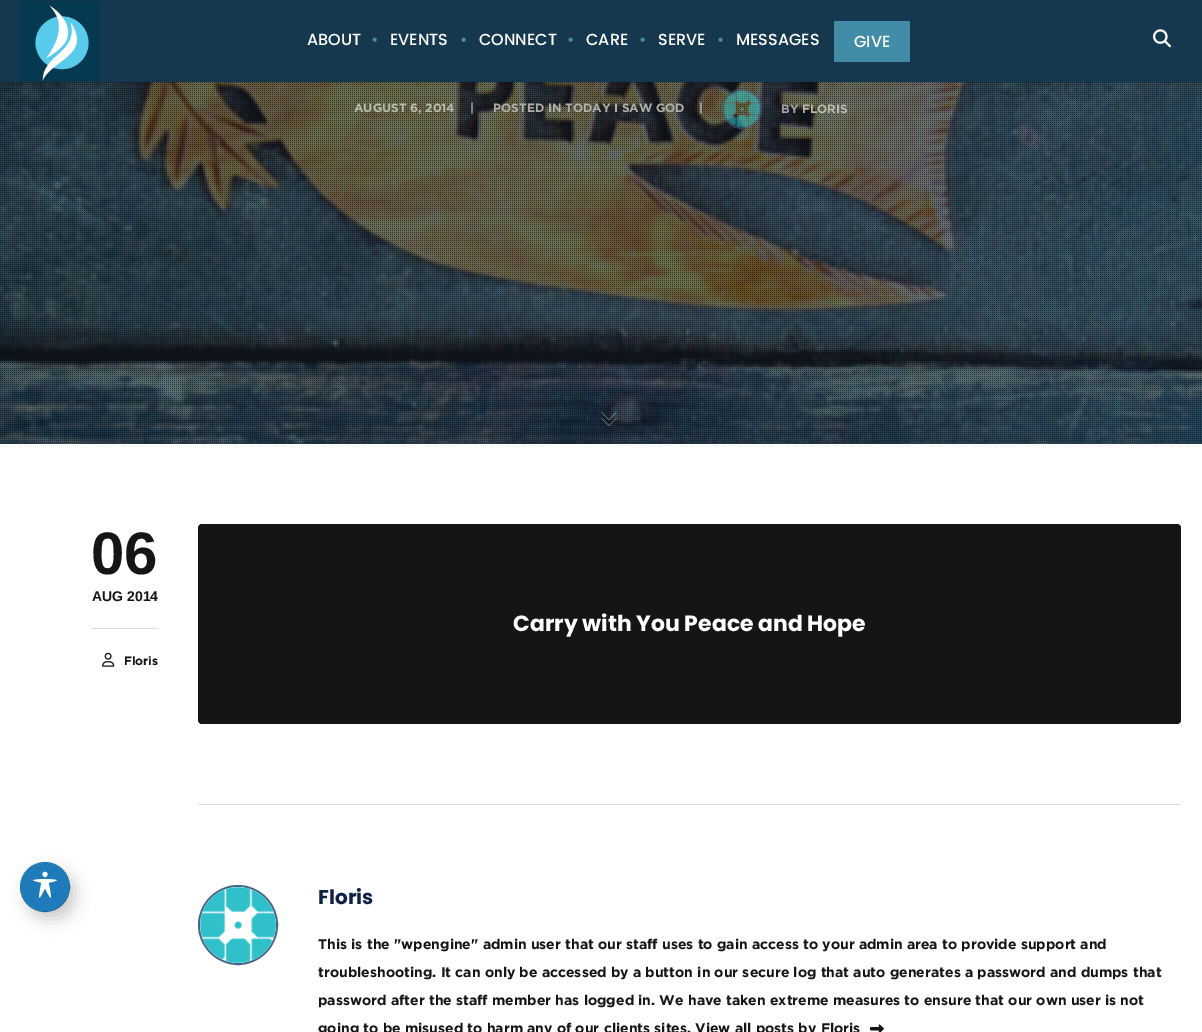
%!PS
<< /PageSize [1202 1032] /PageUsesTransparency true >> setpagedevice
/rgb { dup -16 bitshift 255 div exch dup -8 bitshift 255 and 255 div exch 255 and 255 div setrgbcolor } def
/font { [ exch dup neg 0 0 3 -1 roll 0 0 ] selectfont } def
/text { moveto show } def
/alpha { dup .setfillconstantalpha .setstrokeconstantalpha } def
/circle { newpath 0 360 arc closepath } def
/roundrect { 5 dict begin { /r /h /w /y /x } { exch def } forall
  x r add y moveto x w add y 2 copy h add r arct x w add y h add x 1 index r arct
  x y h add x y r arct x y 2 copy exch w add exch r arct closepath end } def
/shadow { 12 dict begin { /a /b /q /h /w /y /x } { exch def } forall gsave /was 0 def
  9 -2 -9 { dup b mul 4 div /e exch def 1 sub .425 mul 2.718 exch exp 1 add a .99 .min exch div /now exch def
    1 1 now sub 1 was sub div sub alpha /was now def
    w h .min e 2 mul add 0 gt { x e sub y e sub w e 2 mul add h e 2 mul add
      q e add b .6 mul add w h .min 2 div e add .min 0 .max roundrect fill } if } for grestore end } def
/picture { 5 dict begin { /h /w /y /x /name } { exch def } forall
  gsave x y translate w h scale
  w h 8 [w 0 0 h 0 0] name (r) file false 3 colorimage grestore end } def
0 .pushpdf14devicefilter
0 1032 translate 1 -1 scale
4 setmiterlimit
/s1 { /Poppins-Medium 16 font 16#FFFFFF rgb } def
/s2 { /Poppins-Medium 16 font 16#418DA8 rgb } def
/s3 { /Gotham-Bold 12 font 16#BABAAE rgb } def
/s4 { /Gotham-Bold 12 font 16#A0A1A4 rgb } def
/s5 { /Gotham-Bold 12 font 16#AEAEAA rgb } def
/s6 { /Gotham-Bold 12 font 16#B5B0A8 rgb } def
/s7 { /LiberationSans-Bold 60 font 16#151515 rgb } def
/s8 { /LiberationSans-Bold 14 font 16#151515 rgb } def
/s9 { /Gotham-Bold 12 font 16#151515 rgb } def
/s10 { /Poppins-Bold 22 font 16#FFFFFF rgb } def
/s11 { /Poppins-Bold 20 font 16#0E2147 rgb } def
/s12 { /Gotham-Bold 14 font 16#151515 rgb } def
16#FFFFFF rgb
0 0 1202 1032 rectfill
(pic3.raw) 0 82 1202 362 picture
(pic4.raw) 0 82 1202 362 picture
0.57 alpha
16#446688 rgb
2 setlinewidth
742 109 19 circle stroke
1 alpha
(pic5.raw) 724 91 36 36 picture
16#000000 rgb
4 -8 1194 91 0 2.5 0.1 shadow
16#16384F rgb
0 0 1202 82 rectfill
(pic1.raw) 21 1 80 80 picture
s1
(ABOUT) 307 45 text
s2
(•) 371 45 text
s1
(EVENTS) 390 45 text
s2
(•) 460 45 text
s1
(CONNECT) 479 45 text
s2
(•) 567 45 text
s1
(CARE) 586 45 text
s2
(•) 639 45 text
s1
(SERVE) 658 45 text
s2
(•) 717 45 text
s1
(MESSAGES) 736 45 text
16#418DA8 rgb
834 21 76 41 rectfill
s1
(GIVE) 854 47 text
(pic2.raw) 1153 29 18 19 picture
s3
(AUGUST 6, 2014) 354 112 text
s4
(|) 470 112 text
s5
(POSTED IN) 493 112 text
(TODAY I SAW GOD) 565 112 text
s6
(|) 699 112 text
s4
(BY) 781 113 text
s3
(FLORIS) 802 113 text
(pic6.raw) 601 412 16 14 picture
16#1E7AB9 rgb
1 setlinewidth
45 887 24.5 circle stroke
16#000000 rgb
27 871 48 48 24 8 0.2 shadow
16#1E7AB9 rgb
45 887 24 circle fill
(pic7.raw) 33 871 24 27 picture
16#DDDDDD rgb
91 628 67 1 rectfill
s7
(06) 91 574 text
s8
(AUG 2014) 92 601 text
(pic8.raw) 102 652 13 15 picture
s9
(Floris) 124 665 text
198 524 983 200 4 roundrect fill
s10
(Carry with You Peace and Hope) 513 631 text
16#DDDDDD rgb
198 804 983 1 rectfill
16#446688 rgb
2 setlinewidth
238 925 39 circle stroke
(pic9.raw) 200 887 76 76 picture
s11
(Floris) 318 904 text
s12
(This is the "wpengine" admin user that our staff uses to gain access to your admin area to provide support and) 318 949 text
(troubleshooting. It can only be accessed by a button in our secure log that auto generates a password and dumps that) 318 977 text
(password after the staff member has logged in. We have taken extreme measures to ensure that our own user is not) 318 1005 text
(going to be misused to harm any of our clients sites. View all posts by Floris) 318 1033 text
(pic10.raw) 870 1024 14 8 picture
.poppdf14devicefilter showpage
